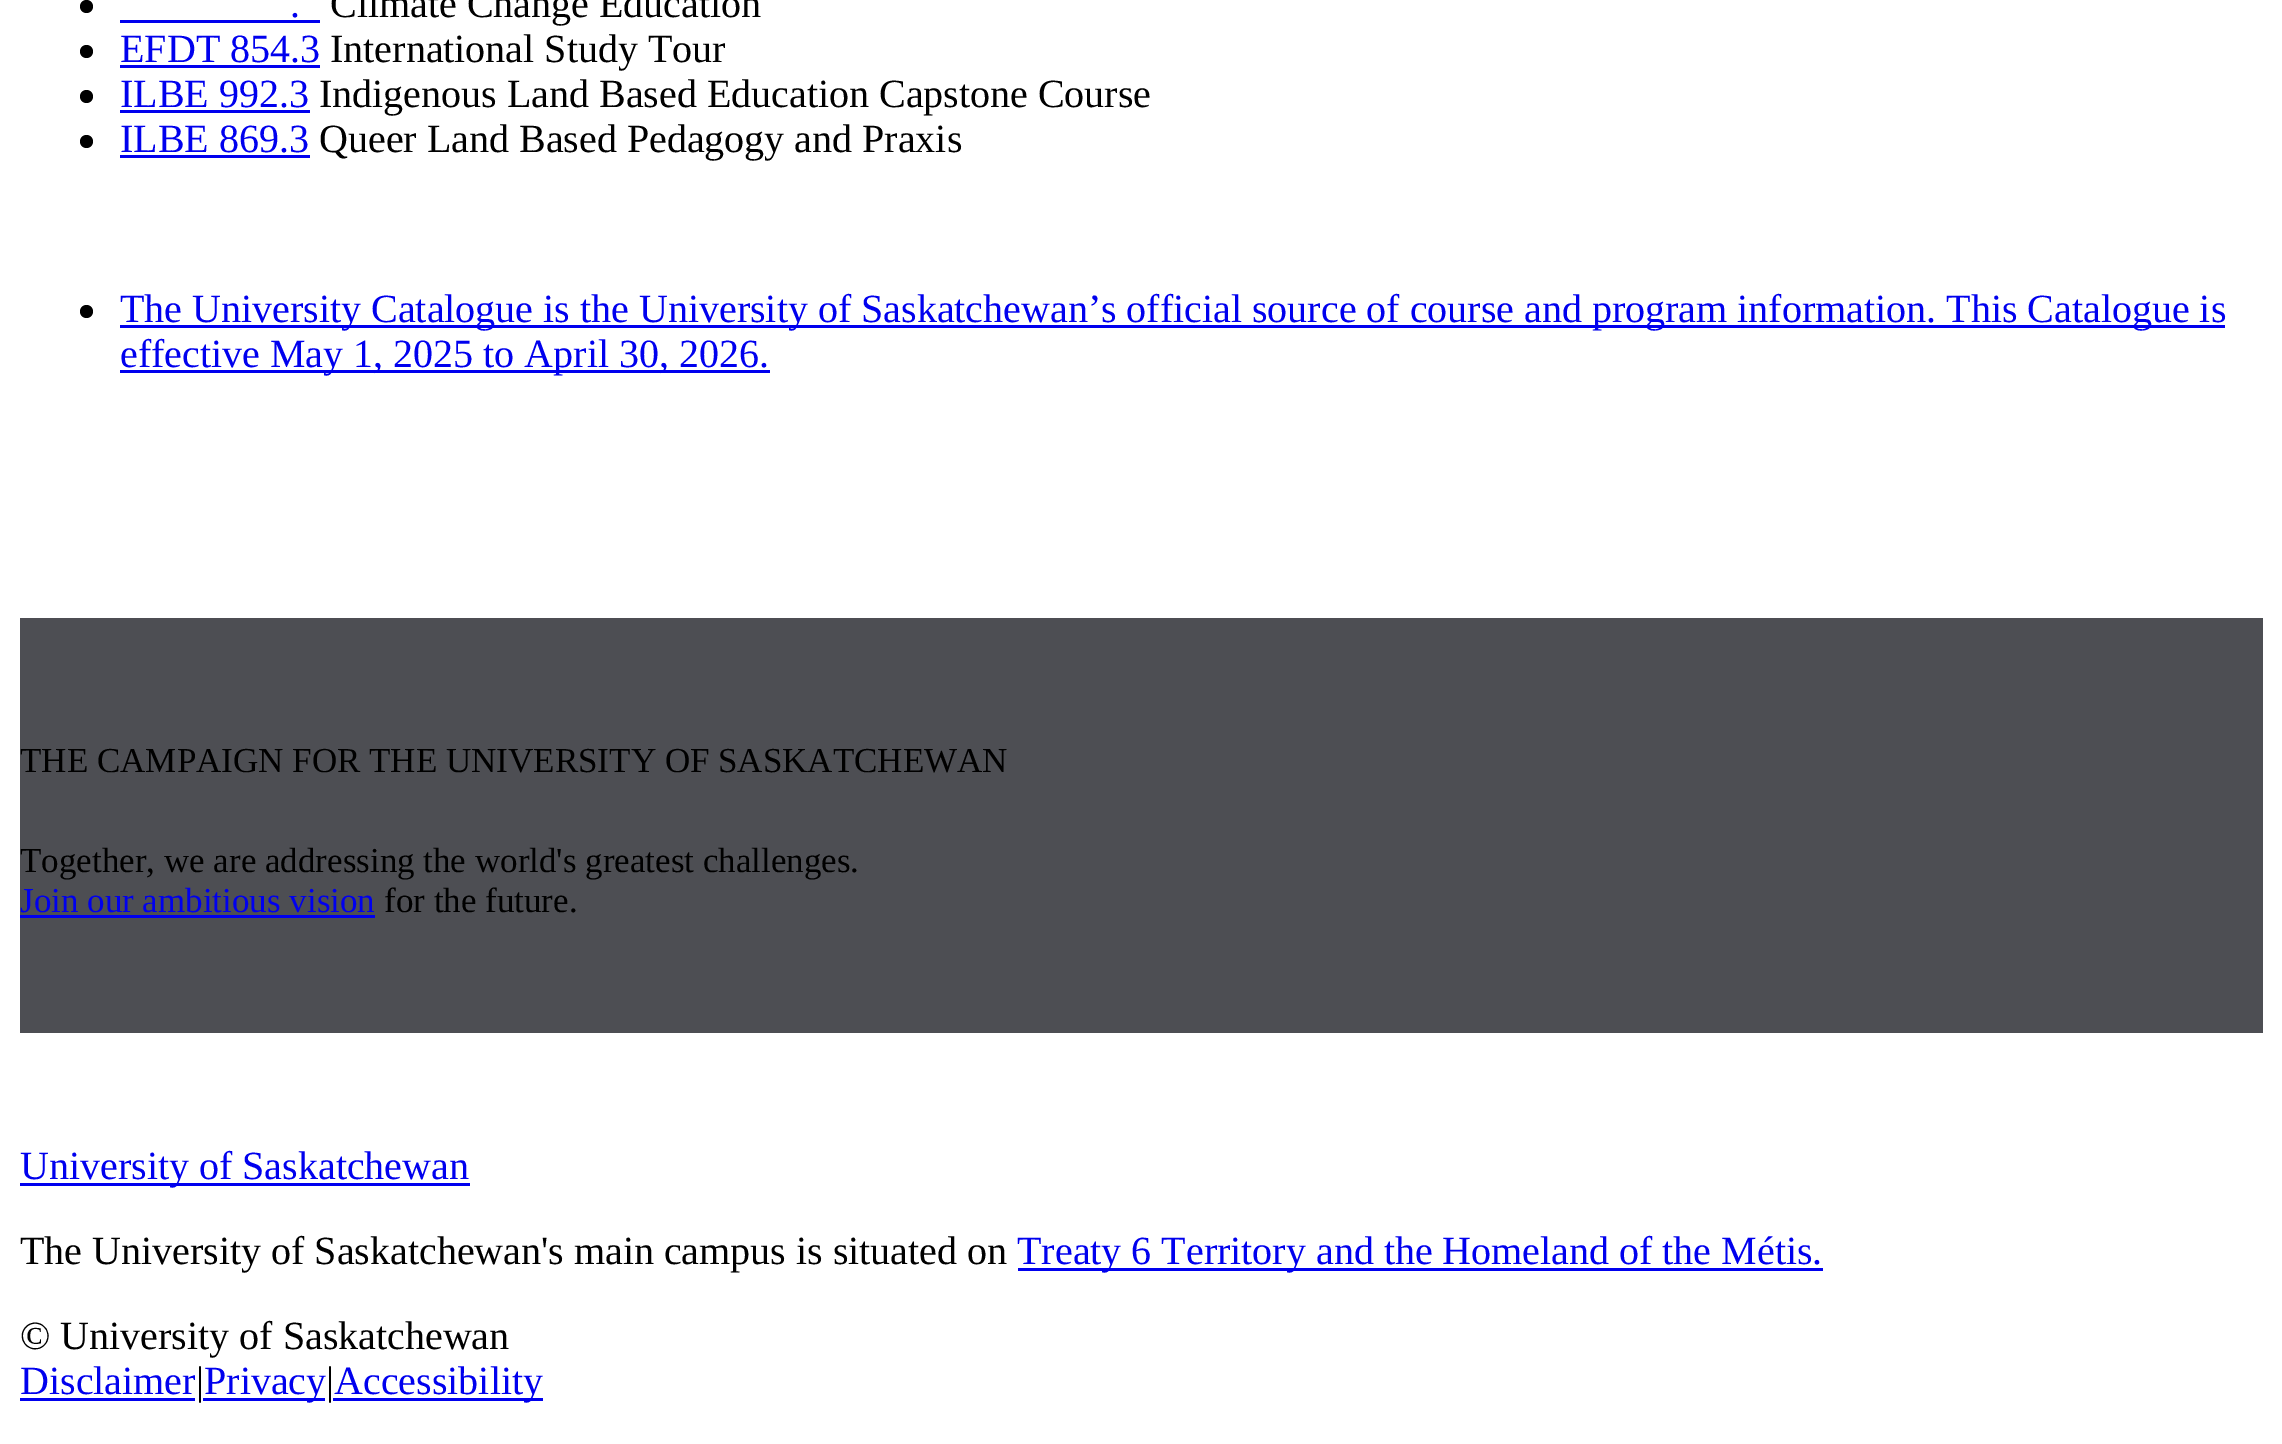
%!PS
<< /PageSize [2282 1444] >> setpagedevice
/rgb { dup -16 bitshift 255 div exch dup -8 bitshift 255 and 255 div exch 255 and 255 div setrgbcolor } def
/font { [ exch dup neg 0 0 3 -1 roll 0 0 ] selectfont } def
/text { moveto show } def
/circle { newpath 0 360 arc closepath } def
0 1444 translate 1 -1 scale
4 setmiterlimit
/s1 { /LiberationSerif-Regular 40 font 16#0000EE rgb } def
/s2 { /LiberationSerif-Regular 40 font 16#000000 rgb } def
/s3 { /LiberationSerif-Regular 35 font 16#000000 rgb } def
/s4 { /LiberationSerif-Regular 35 font 16#0000EE rgb } def
16#FFFFFF rgb
0 0 2282 1444 rectfill
16#000000 rgb
86.5 6.5 6.5 circle fill
s1
(.) 290 17 text
120 20 200 3 rectfill
s2
(Climate Change Education) 330 17 text
86.5 51.5 6.5 circle fill
s1
(EFDT 854.3) 120 62 text
120 65 200 3 rectfill
s2
(International Study Tour) 330 62 text
86.5 96.5 6.5 circle fill
s1
(ILBE 992.3) 120 107 text
120 110 190 3 rectfill
s2
(Indigenous Land Based Education Capstone Course) 319 107 text
86.5 141.5 6.5 circle fill
s1
(ILBE 869.3) 120 152 text
120 155 190 3 rectfill
s2
(Queer Land Based Pedagogy and Praxis) 319 152 text
86.5 311.5 6.5 circle fill
16#0000EE rgb
120 325 2105 3 rectfill
(The University Catalogue is the University of Saskatchewan’s official source of course and program information. This Catalogue is) 120 322 text
120 370 650 3 rectfill
(effective May 1, 2025 to April 30, 2026.) 120 367 text
16#4D4E53 rgb
20 618 2243 415 rectfill
s3
(THE CAMPAIGN FOR THE UNIVERSITY OF SASKATCHEWAN) 20 772 text
(Together, we are addressing the world's greatest challenges.) 20 872 text
s4
(Join our ambitious vision) 20 912 text
20 915 355 3 rectfill
s3
(for the future.) 384 912 text
16#0000EE rgb
20 1183 450 3 rectfill
s1
(University of Saskatchewan) 20 1179 text
s2
(The University of Saskatchewan's main campus is situated on) 20 1264 text
16#0000EE rgb
1018 1268 805 3 rectfill
(Treaty 6 Territory and the Homeland of the Métis.) 1017 1264 text
s2
(© University of Saskatchewan) 20 1349 text
s1
(Disclaimer) 20 1394 text
20 1398 175 3 rectfill
s2
(|) 196 1394 text
16#0000EE rgb
203 1398 122 3 rectfill
(Privacy) 204 1394 text
s2
(|) 326 1394 text
16#0000EE rgb
333 1398 210 3 rectfill
(Accessibility) 334 1394 text
showpage
